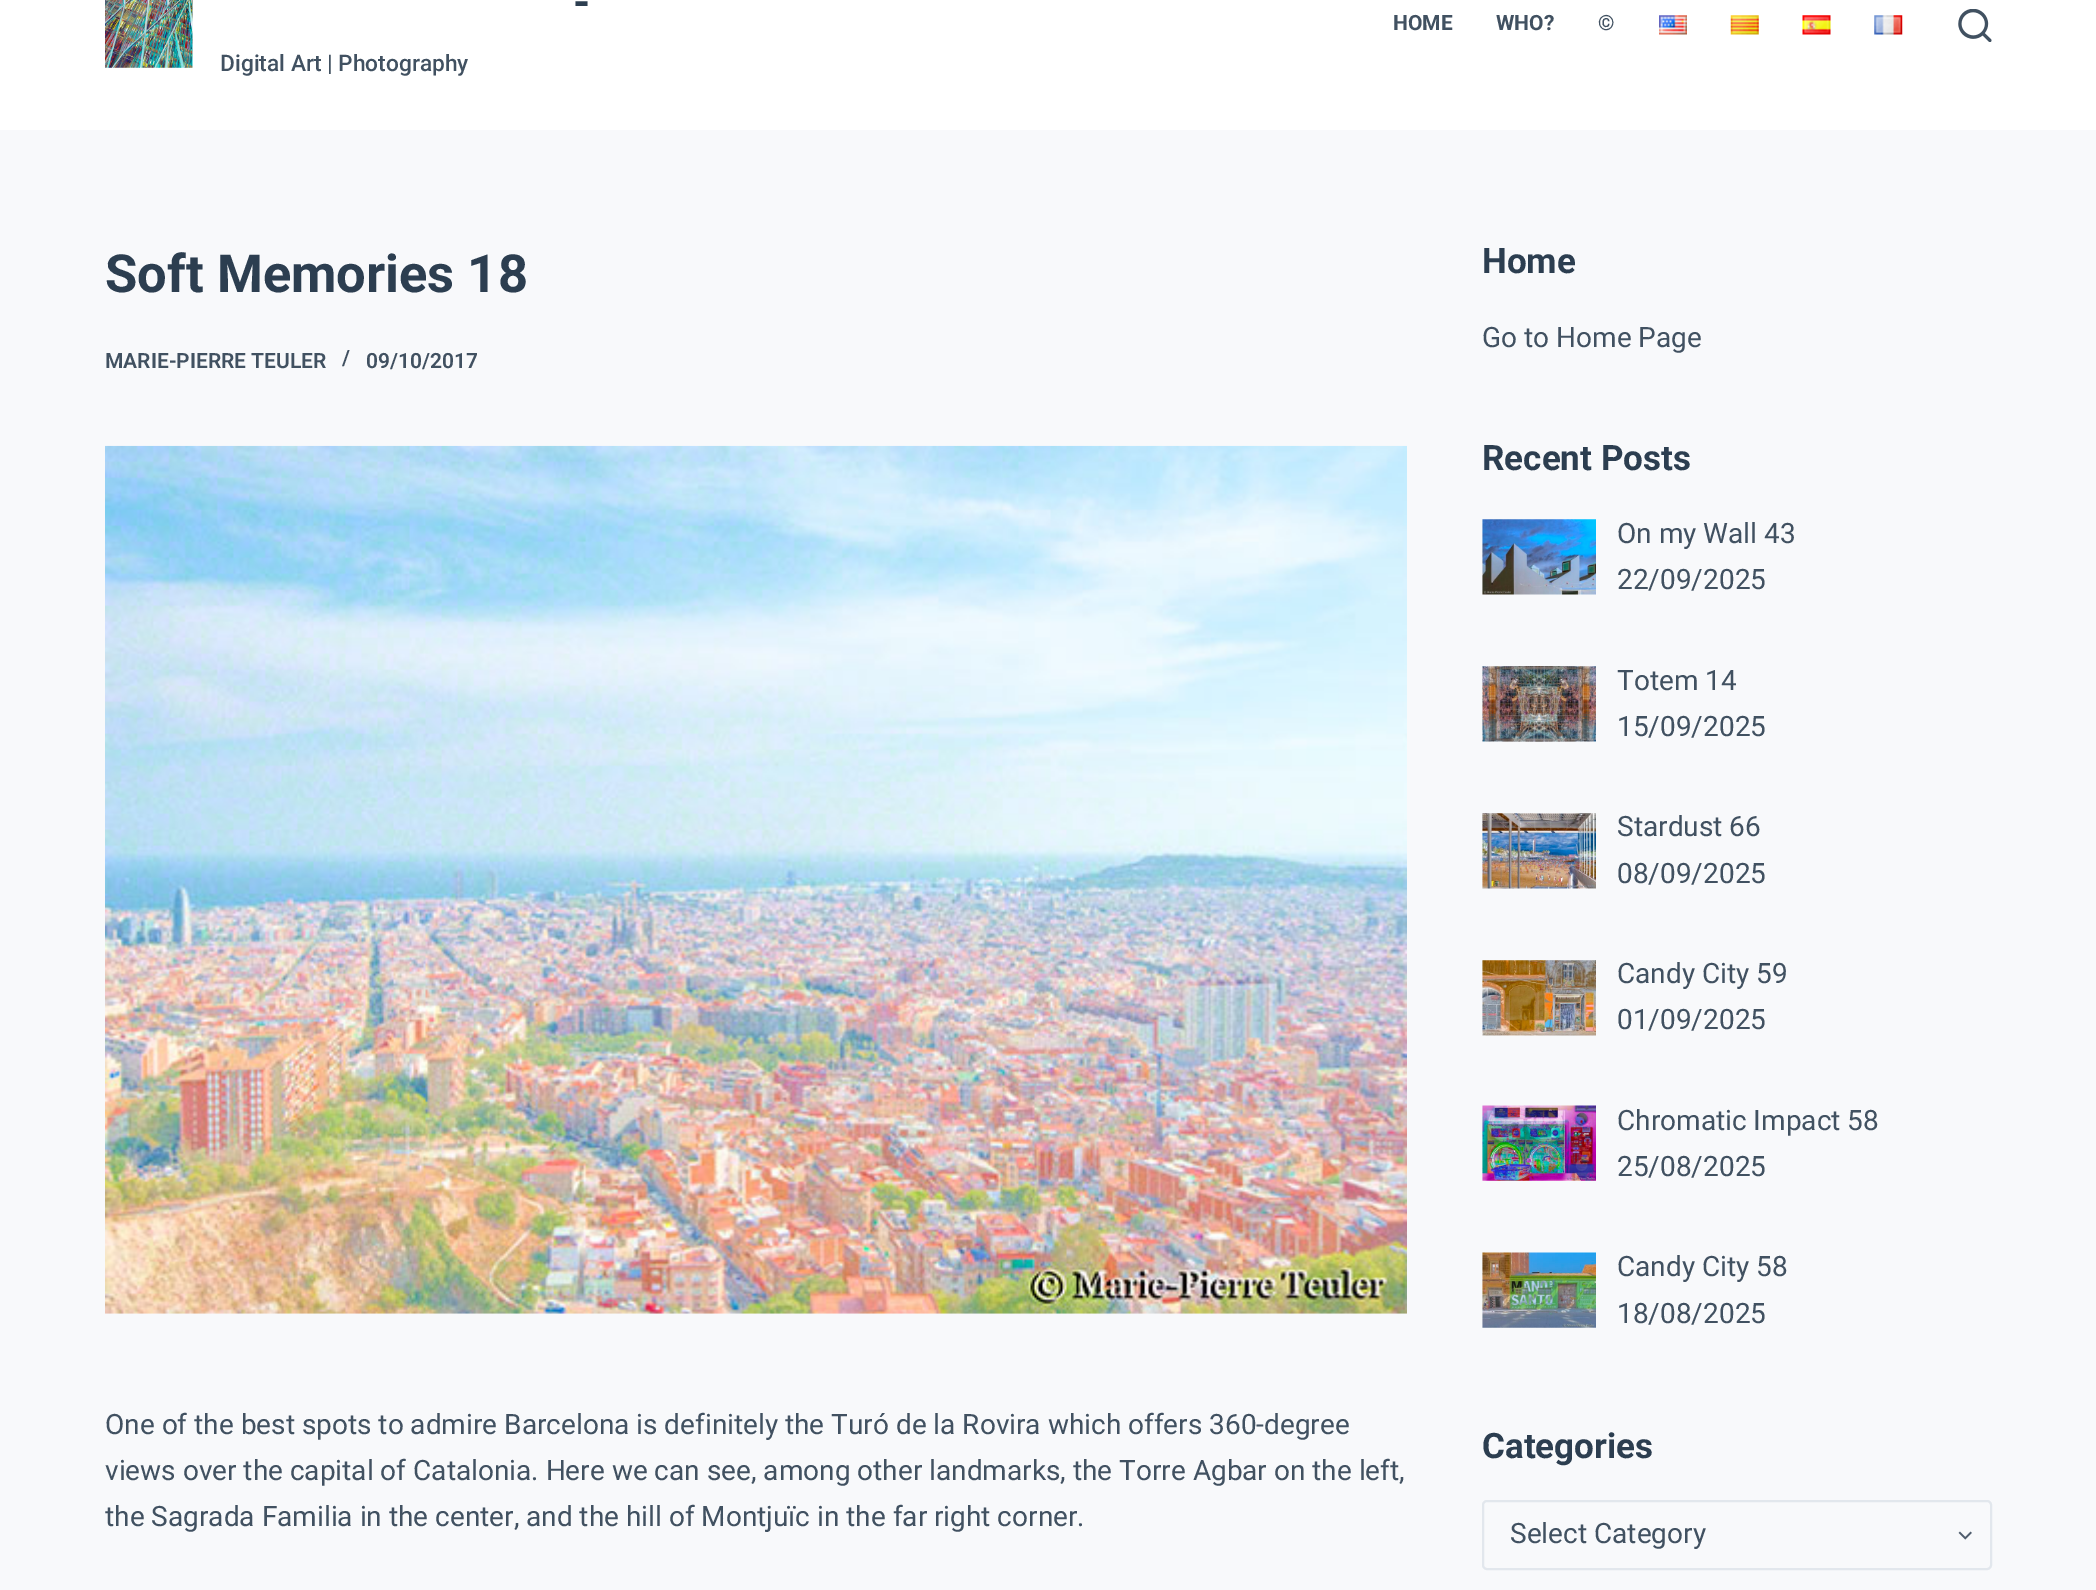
%!PS
<< /PageSize [2096 1590] >> setpagedevice
/rgb { dup -16 bitshift 255 div exch dup -8 bitshift 255 and 255 div exch 255 and 255 div setrgbcolor } def
/font { [ exch dup neg 0 0 3 -1 roll 0 0 ] selectfont } def
/text { moveto show } def
/roundrect { 5 dict begin { /r /h /w /y /x } { exch def } forall
  x r add y moveto x w add y 2 copy h add r arct x w add y h add x 1 index r arct
  x y h add x y r arct x y 2 copy exch w add exch r arct closepath end } def
/picture { 5 dict begin { /h /w /y /x /name } { exch def } forall
  gsave x y translate w h scale
  w h 8 [w 0 0 h 0 0] name (r) file false 3 colorimage grestore end } def
0 1590 translate 1 -1 scale
4 setmiterlimit
/s1 { /Roboto-Bold 44 font 16#2C3E50 rgb } def
/s2 { /Roboto-Medium 22.75 font 16#415161 rgb } def
/s3 { /Roboto-Bold 21 font 16#415161 rgb } def
/s4 { /Roboto-Bold 52.5 font 16#2C3E50 rgb } def
/s5 { /Roboto-SemiBold 21 font 16#415161 rgb } def
/s6 { /Roboto-Regular 28 font 16#415161 rgb } def
/s7 { /Roboto-Bold 35 font 16#2C3E50 rgb } def
16#F8F9FB rgb
0 0 2096 1590 rectfill
16#FFFFFF rgb
0 0 2096 130 rectfill
(pic1.raw) 105 0 88 68 picture
s1
(-) 573 17 text
s2
(Digital Art | Photography) 220 71 text
s3
(HOME) 1393 30 text
(WHO?) 1496 30 text
(©) 1598 30 text
(pic2.raw) 1659 15 28 20 picture
(pic3.raw) 1730 15 29 20 picture
(pic4.raw) 1802 15 29 20 picture
(pic5.raw) 1874 15 29 20 picture
(pic6.raw) 1958 9 34 33 picture
s4
(Soft Memories 18) 105 292 text
s5
(MARIE-PIERRE TEULER) 105 368 text
(/) 342 365 text
(09/10/2017) 366 368 text
(pic7.raw) 105 445 1302 869 picture
s6
(One of the best spots to admire Barcelona is definitely the Turó de la Rovira which offers 360-degree) 105 1434 text
(views over the capital of Catalonia. Here we can see, among other landmarks, the Torre Agbar on the left,) 105 1480 text
(the Sagrada Familia in the center, and the hill of Montjuïc in the far right corner.) 105 1526 text
s7
(Home) 1482 273 text
s6
(Go to Home Page) 1482 347 text
s7
(Recent Posts) 1482 470 text
(pic8.raw) 1482 519 114 76 picture
s6
(On my Wall 43) 1617 543 text
(22/09/2025) 1617 589 text
(pic9.raw) 1482 666 114 76 picture
(Totem 14) 1617 690 text
(15/09/2025) 1617 736 text
(pic10.raw) 1482 813 114 76 picture
(Stardust 66) 1617 836 text
(08/09/2025) 1617 883 text
(pic11.raw) 1482 960 114 76 picture
(Candy City 59) 1617 983 text
(01/09/2025) 1617 1029 text
(pic12.raw) 1482 1105 114 76 picture
(Chromatic Impact 58) 1617 1130 text
(25/08/2025) 1617 1176 text
(pic13.raw) 1482 1252 114 76 picture
(Candy City 58) 1617 1276 text
(18/08/2025) 1617 1323 text
s7
(Categories) 1482 1458 text
(pic14.raw) 1958 1531 14 9 picture
16#E2E7ED rgb
2 setlinewidth
1483 1501 508 68 4 roundrect stroke
s6
(Select Category) 1510 1543 text
showpage
